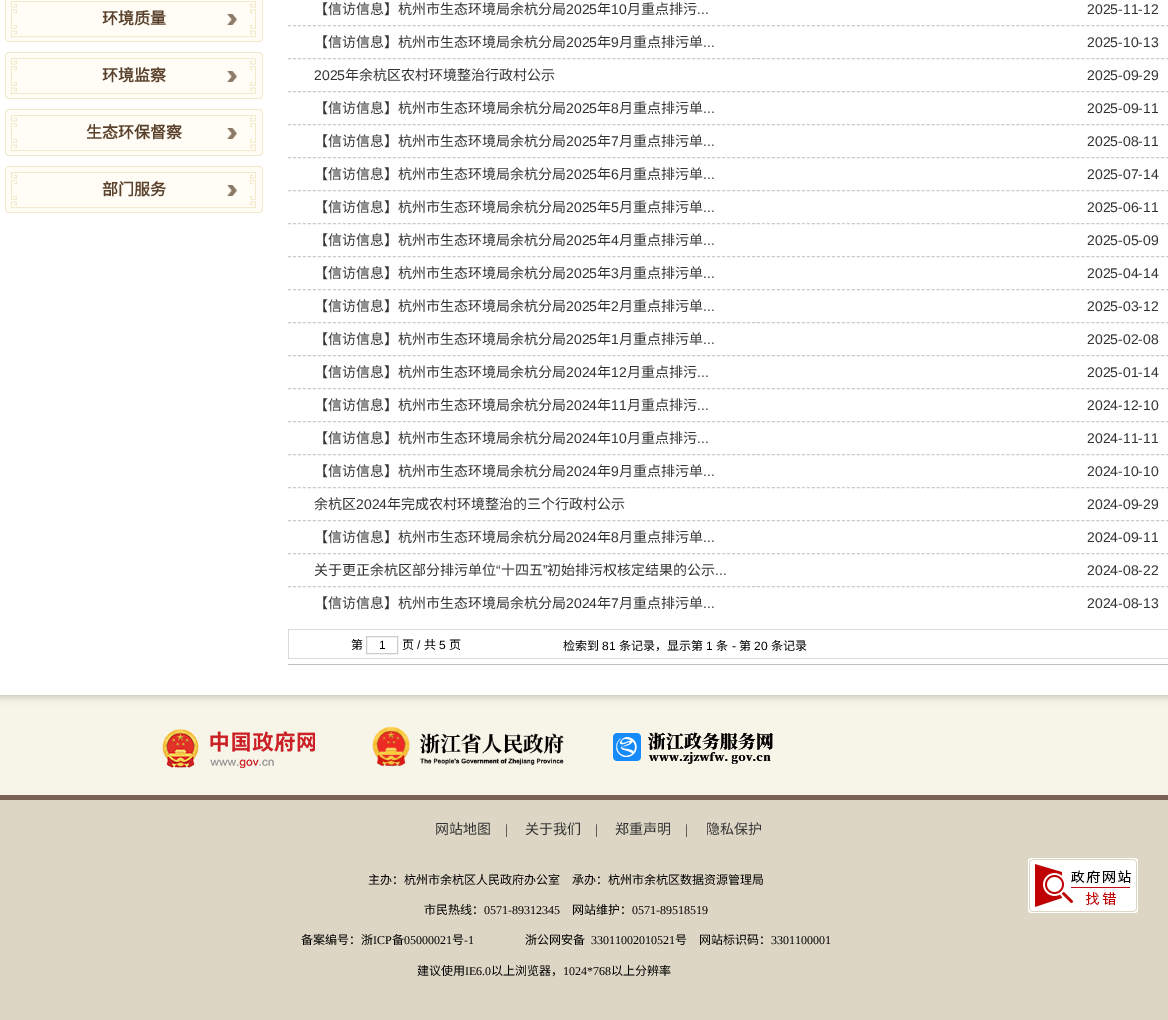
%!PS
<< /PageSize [1168 1020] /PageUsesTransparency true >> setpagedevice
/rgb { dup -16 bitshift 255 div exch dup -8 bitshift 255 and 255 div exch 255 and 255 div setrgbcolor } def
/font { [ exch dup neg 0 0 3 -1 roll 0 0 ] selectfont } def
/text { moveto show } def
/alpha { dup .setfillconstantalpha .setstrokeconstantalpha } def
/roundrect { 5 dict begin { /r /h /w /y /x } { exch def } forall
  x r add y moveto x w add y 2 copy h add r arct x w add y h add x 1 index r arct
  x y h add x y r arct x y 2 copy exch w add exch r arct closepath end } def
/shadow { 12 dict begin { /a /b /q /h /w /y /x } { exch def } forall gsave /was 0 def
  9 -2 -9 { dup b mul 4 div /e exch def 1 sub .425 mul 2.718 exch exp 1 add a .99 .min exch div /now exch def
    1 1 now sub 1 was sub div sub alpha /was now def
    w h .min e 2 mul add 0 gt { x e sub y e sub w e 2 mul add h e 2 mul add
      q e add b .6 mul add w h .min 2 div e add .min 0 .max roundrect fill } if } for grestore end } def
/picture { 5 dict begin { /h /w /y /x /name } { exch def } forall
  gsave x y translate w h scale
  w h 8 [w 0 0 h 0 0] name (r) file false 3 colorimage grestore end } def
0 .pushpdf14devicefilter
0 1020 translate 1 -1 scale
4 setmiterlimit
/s1 { /NotoSansCJKSC-Bold 16 font 16#5A412C rgb } def
/s2 { /NotoSansCJKSC-Regular 14 font 16#333333 rgb } def
/s3 { /LiberationSans-Regular 14 font 16#333333 rgb } def
/s4 { /NotoSansCJKSC-Regular 12 font 16#000000 rgb } def
/s5 { /LiberationSans-Regular 12 font 16#000000 rgb } def
/s6 { /LiberationSerif-Regular 14 font 16#333333 rgb } def
/s7 { /LiberationSerif-Regular 12 font 16#000000 rgb } def
16#F7F4E8 rgb
0 0 1168 1020 rectfill
16#000000 rgb
0 -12 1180 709 0 4 0.2 shadow
16#FFFFFF rgb
0 0 1168 695 rectfill
(pic1.raw) 5 0 258 42 picture
s1
(环境质量) 102 24 text
(pic2.raw) 227 14 10 11 picture
(pic3.raw) 5 52 258 47 picture
(环境监察) 102 81 text
(pic2.raw) 227 71 10 11 picture
(pic3.raw) 5 109 258 47 picture
(生态环保督察) 86 138 text
(pic2.raw) 227 128 10 11 picture
(pic3.raw) 5 166 258 47 picture
(部门服务) 102 195 text
(pic2.raw) 227 185 10 11 picture
16#BFBFBF rgb
288 664 880 1 rectfill
s2
(【信访信息】杭州市生态环境局余杭分局) 314 14 text
s3
(2025) 566 14 text
s2
(年) 597 14 text
s3
(10) 611 14 text
s2
(月重点排污) 627 14 text
s3
(...) 697 14 text
(2025-11-12) 1087 14 text
16#CBCBCB rgb
[3 1.99] 0 setdash
288 25.5 moveto 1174 25.5 lineto stroke
s2
(【信访信息】杭州市生态环境局余杭分局) 314 47 text
s3
(2025) 566 47 text
s2
(年) 597 47 text
s3
(9) 611 47 text
s2
(月重点排污单) 619 47 text
s3
(...) 703 47 text
(2025-10-13) 1087 47 text
16#CBCBCB rgb
288 58.5 moveto 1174 58.5 lineto stroke
s3
(2025) 314 80 text
s2
(年余杭区农村环境整治行政村公示) 345 80 text
s3
(2025-09-29) 1087 80 text
16#CBCBCB rgb
288 91.5 moveto 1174 91.5 lineto stroke
s2
(【信访信息】杭州市生态环境局余杭分局) 314 113 text
s3
(2025) 566 113 text
s2
(年) 597 113 text
s3
(8) 611 113 text
s2
(月重点排污单) 619 113 text
s3
(...) 703 113 text
(2025-09-11) 1087 113 text
16#CBCBCB rgb
288 124.5 moveto 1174 124.5 lineto stroke
s2
(【信访信息】杭州市生态环境局余杭分局) 314 146 text
s3
(2025) 566 146 text
s2
(年) 597 146 text
s3
(7) 611 146 text
s2
(月重点排污单) 619 146 text
s3
(...) 703 146 text
(2025-08-11) 1087 146 text
16#CBCBCB rgb
288 157.5 moveto 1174 157.5 lineto stroke
s2
(【信访信息】杭州市生态环境局余杭分局) 314 179 text
s3
(2025) 566 179 text
s2
(年) 597 179 text
s3
(6) 611 179 text
s2
(月重点排污单) 619 179 text
s3
(...) 703 179 text
(2025-07-14) 1087 179 text
16#CBCBCB rgb
288 190.5 moveto 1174 190.5 lineto stroke
s2
(【信访信息】杭州市生态环境局余杭分局) 314 212 text
s3
(2025) 566 212 text
s2
(年) 597 212 text
s3
(5) 611 212 text
s2
(月重点排污单) 619 212 text
s3
(...) 703 212 text
(2025-06-11) 1087 212 text
16#CBCBCB rgb
288 223.5 moveto 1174 223.5 lineto stroke
s2
(【信访信息】杭州市生态环境局余杭分局) 314 245 text
s3
(2025) 566 245 text
s2
(年) 597 245 text
s3
(4) 611 245 text
s2
(月重点排污单) 619 245 text
s3
(...) 703 245 text
(2025-05-09) 1087 245 text
16#CBCBCB rgb
288 256.5 moveto 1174 256.5 lineto stroke
s2
(【信访信息】杭州市生态环境局余杭分局) 314 278 text
s3
(2025) 566 278 text
s2
(年) 597 278 text
s3
(3) 611 278 text
s2
(月重点排污单) 619 278 text
s3
(...) 703 278 text
(2025-04-14) 1087 278 text
16#CBCBCB rgb
288 289.5 moveto 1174 289.5 lineto stroke
s2
(【信访信息】杭州市生态环境局余杭分局) 314 311 text
s3
(2025) 566 311 text
s2
(年) 597 311 text
s3
(2) 611 311 text
s2
(月重点排污单) 619 311 text
s3
(...) 703 311 text
(2025-03-12) 1087 311 text
16#CBCBCB rgb
288 322.5 moveto 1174 322.5 lineto stroke
s2
(【信访信息】杭州市生态环境局余杭分局) 314 344 text
s3
(2025) 566 344 text
s2
(年) 597 344 text
s3
(1) 611 344 text
s2
(月重点排污单) 619 344 text
s3
(...) 703 344 text
(2025-02-08) 1087 344 text
16#CBCBCB rgb
288 355.5 moveto 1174 355.5 lineto stroke
s2
(【信访信息】杭州市生态环境局余杭分局) 314 377 text
s3
(2024) 566 377 text
s2
(年) 597 377 text
s3
(12) 611 377 text
s2
(月重点排污) 627 377 text
s3
(...) 697 377 text
(2025-01-14) 1087 377 text
16#CBCBCB rgb
288 388.5 moveto 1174 388.5 lineto stroke
s2
(【信访信息】杭州市生态环境局余杭分局) 314 410 text
s3
(2024) 566 410 text
s2
(年) 597 410 text
s3
(11) 611 410 text
s2
(月重点排污) 627 410 text
s3
(...) 697 410 text
(2024-12-10) 1087 410 text
16#CBCBCB rgb
288 421.5 moveto 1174 421.5 lineto stroke
s2
(【信访信息】杭州市生态环境局余杭分局) 314 443 text
s3
(2024) 566 443 text
s2
(年) 597 443 text
s3
(10) 611 443 text
s2
(月重点排污) 627 443 text
s3
(...) 697 443 text
(2024-11-11) 1087 443 text
16#CBCBCB rgb
288 454.5 moveto 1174 454.5 lineto stroke
s2
(【信访信息】杭州市生态环境局余杭分局) 314 476 text
s3
(2024) 566 476 text
s2
(年) 597 476 text
s3
(9) 611 476 text
s2
(月重点排污单) 619 476 text
s3
(...) 703 476 text
(2024-10-10) 1087 476 text
16#CBCBCB rgb
288 487.5 moveto 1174 487.5 lineto stroke
s2
(余杭区) 314 509 text
s3
(2024) 356 509 text
s2
(年完成农村环境整治的三个行政村公示) 387 509 text
s3
(2024-09-29) 1087 509 text
16#CBCBCB rgb
288 520.5 moveto 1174 520.5 lineto stroke
s2
(【信访信息】杭州市生态环境局余杭分局) 314 542 text
s3
(2024) 566 542 text
s2
(年) 597 542 text
s3
(8) 611 542 text
s2
(月重点排污单) 619 542 text
s3
(...) 703 542 text
(2024-09-11) 1087 542 text
16#CBCBCB rgb
288 553.5 moveto 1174 553.5 lineto stroke
s2
(关于更正余杭区部分排污单位) 314 575 text
s3
(“) 496 575 text
s2
(十四五) 501 575 text
s3
(”) 543 575 text
s2
(初始排污权核定结果的公示) 547 575 text
s3
(...) 715 575 text
(2024-08-22) 1087 575 text
16#CBCBCB rgb
288 586.5 moveto 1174 586.5 lineto stroke
s2
(【信访信息】杭州市生态环境局余杭分局) 314 608 text
s3
(2024) 566 608 text
s2
(年) 597 608 text
s3
(7) 611 608 text
s2
(月重点排污单) 619 608 text
s3
(...) 703 608 text
(2024-08-13) 1087 608 text
16#DADADA rgb
288 629 880 1 rectfill
288 658 880 1 rectfill
288 629 1 30 rectfill
s4
(第) 351 649 text
16#CCCCCC rgb
[] 0 setdash
366.5 636.5 31 17 rectstroke
s5
(1) 379 649 text
s4
(页) 402 649 text
s5
(/) 417 649 text
s4
(共) 424 649 text
s5
(5) 439 649 text
s4
(页) 449 649 text
(检索到) 563 650 text
s5
(81) 602 650 text
s4
(条记录，显示第) 619 650 text
s5
(1) 706 650 text
s4
(条) 716 650 text
s5
(-) 732 650 text
s4
(第) 739 650 text
s5
(20) 754 650 text
s4
(条记录) 771 650 text
(pic4.raw) 162 729 153 39 picture
(pic5.raw) 372 726 192 41 picture
(pic6.raw) 613 732 160 32 picture
16#DDD6C4 rgb
0 800 1168 220 rectfill
16#776253 rgb
0 795 1168 5 rectfill
s2
(网站地图) 435 834 text
s6
(|) 505 834 text
s2
(关于我们) 525 834 text
s6
(|) 595 834 text
s2
(郑重声明) 615 834 text
s6
(|) 685 834 text
s2
(隐私保护) 706 834 text
s4
(主办：杭州市余杭区人民政府办公室) 368 884 text
(承办：杭州市余杭区数据资源管理局) 572 884 text
(市民热线：) 424 914 text
s7
(0571-89312345) 484 914 text
s4
(网站维护：) 572 914 text
s7
(0571-89518519) 632 914 text
s4
(备案编号：浙) 301 944 text
s7
(ICP) 373 944 text
s4
(备) 392 944 text
s7
(05000021) 404 944 text
s4
(号) 452 944 text
s7
(-1) 464 944 text
s4
(浙公网安备) 525 944 text
s7
(33011002010521) 591 944 text
s4
(号) 675 944 text
(网站标识码：) 699 944 text
s7
(3301100001) 771 944 text
s4
(建议使用) 417 975 text
s7
(IE6.0) 465 975 text
s4
(以上浏览器，) 491 975 text
s7
(1024*768) 563 975 text
s4
(以上分辨率) 611 975 text
(pic7.raw) 1028 858 110 55 picture
.poppdf14devicefilter showpage
